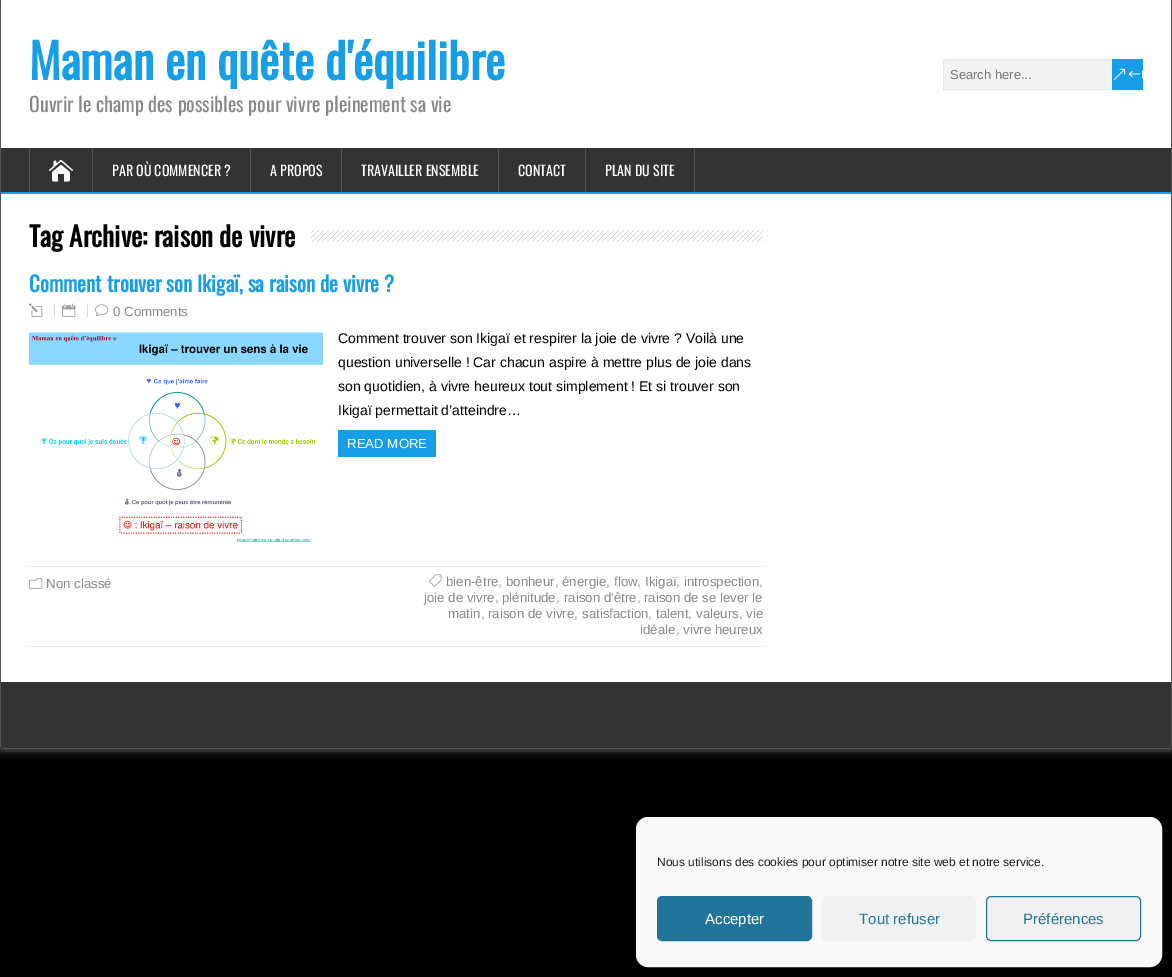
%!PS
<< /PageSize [1172 977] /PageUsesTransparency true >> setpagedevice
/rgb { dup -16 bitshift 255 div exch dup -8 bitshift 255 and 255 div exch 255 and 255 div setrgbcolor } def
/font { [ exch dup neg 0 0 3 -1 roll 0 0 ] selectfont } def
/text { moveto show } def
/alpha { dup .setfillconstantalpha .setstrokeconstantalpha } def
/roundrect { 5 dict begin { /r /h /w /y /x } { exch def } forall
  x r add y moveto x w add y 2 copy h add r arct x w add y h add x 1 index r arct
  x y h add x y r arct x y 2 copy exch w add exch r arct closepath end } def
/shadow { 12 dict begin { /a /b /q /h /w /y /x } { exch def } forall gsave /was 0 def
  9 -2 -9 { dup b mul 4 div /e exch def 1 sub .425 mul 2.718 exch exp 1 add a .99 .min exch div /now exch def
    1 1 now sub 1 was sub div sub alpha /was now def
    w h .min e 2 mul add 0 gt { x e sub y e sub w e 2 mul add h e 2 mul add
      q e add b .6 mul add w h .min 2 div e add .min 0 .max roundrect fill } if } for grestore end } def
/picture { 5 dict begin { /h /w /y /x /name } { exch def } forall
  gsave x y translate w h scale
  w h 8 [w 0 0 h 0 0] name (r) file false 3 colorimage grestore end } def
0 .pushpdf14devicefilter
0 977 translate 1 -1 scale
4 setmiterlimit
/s1 { /Oswald-Bold 48 font 16#169FE6 rgb } def
/s2 { /LiberationSans-Regular 13 font 16#757575 rgb } def
/s3 { /Oswald-Regular 20 font 16#888888 rgb } def
/s4 { /Oswald-Regular 14 font 16#FFFFFF rgb } def
/s5 { /Oswald-Bold 27 font 16#000000 rgb } def
/s6 { /Oswald-Bold 21 font 16#169FE6 rgb } def
/s7 { /LiberationSans-Regular 13.25 font 16#888888 rgb } def
/s8 { /LiberationSans-Regular 14 font 16#000000 rgb } def
/s9 { /LiberationSans-Regular 13.25 font 16#FFFFFF rgb } def
/s10 { /LiberationSans-Regular 13.25 font 16#999999 rgb } def
/s11 { /LiberationSans-Regular 12 font 16#191E23 rgb } def
/s12 { /LiberationSans-Regular 15 font 16#FFFFFF rgb } def
/s13 { /LiberationSans-Regular 15 font 16#21759B rgb } def
16#000000 rgb
0 0 1172 977 rectfill
16#AAAAAA rgb
1 0 1170 748 0 5 1 shadow
16#FFFFFF rgb
1 0 1170 682 rectfill
s1
(Maman en quête d'équilibre) 29 80 text
16#F2F2F2 rgb
944 60 168 29 rectfill
16#E6E6E6 rgb
943.5 59.5 199 30 rectstroke
s2
(Search here...) 950 79 text
16#169FE6 rgb
1112 59 31 31 rectfill
(pic1.raw) 1113 68 30 12 picture
s3
(Ouvrir le champ des possibles pour vivre pleinement sa vie) 29 112 text
16#333333 rgb
1 148 1170 44 rectfill
16#169FE6 rgb
1 192 1170 2 rectfill
16#535353 rgb
92 148 1 44 rectfill
29 148 1 44 rectfill
(pic2.raw) 49 159 24 23 picture
250 148 1 44 rectfill
s4
(PAR OÙ COMMENCER ?) 112 176 text
16#535353 rgb
341 148 1 44 rectfill
s4
(A PROPOS) 270 176 text
16#535353 rgb
498 148 1 44 rectfill
s4
(TRAVAILLER ENSEMBLE) 361 176 text
16#535353 rgb
585 148 1 44 rectfill
s4
(CONTACT) 518 176 text
16#535353 rgb
694 148 1 44 rectfill
s4
(PLAN DU SITE) 605 176 text
(pic3.raw) 311 230 452 12 picture
s5
(Tag Archive: raison de vivre) 29 247 text
16#E8E8E8 rgb
29 646 734 1 rectfill
s6
(Comment trouver son Ikigaï, sa raison de vivre ?) 29 292 text
(pic4.raw) 29 303 14 14 picture
16#DBDBDB rgb
54 304 1 13 rectfill
(pic5.raw) 62 303 14 14 picture
(pic6.raw) 95 304 14 12 picture
s7
(0 Comments) 113 316 text
16#DBDBDB rgb
87 304 1 13 rectfill
(pic7.raw) 29 332 294 211 picture
s8
(Comment trouver son Ikigaï et respirer la joie de vivre ? Voilà une) 338 343 text
(question universelle ! Car chacun aspire à mettre plus de joie dans) 338 367 text
(son quotidien, à vivre heureux tout simplement ! Et si trouver son) 338 391 text
(Ikigaï permettait d’atteindre…) 338 415 text
16#169FE6 rgb
338 430 98 27 rectfill
s9
(READ MORE) 347 448 text
16#E8E8E8 rgb
29 566 734 1 rectfill
(pic8.raw) 29 578 14 11 picture
s7
(Non classé) 46 588 text
(pic9.raw) 429 574 13 13 picture
(bien-être) 446 586 text
s10
(,) 498 586 text
s7
(bonheur) 506 586 text
s10
(,) 555 586 text
s7
(énergie) 562 586 text
s10
(,) 606 586 text
s7
(flow) 614 586 text
s10
(,) 637 586 text
s7
(Ikigaï) 645 586 text
s10
(,) 676 586 text
s7
(introspection) 684 586 text
s10
(,) 759 586 text
s7
(joie de vivre) 424 602 text
s10
(,) 495 602 text
s7
(plénitude) 502 602 text
s10
(,) 556 602 text
s7
(raison d'être) 564 602 text
s10
(,) 637 602 text
s7
(raison de se lever le) 644 602 text
(matin) 448 618 text
s10
(,) 481 618 text
s7
(raison de vivre) 488 618 text
s10
(,) 574 618 text
s7
(satisfaction) 582 618 text
s10
(,) 648 618 text
s7
(talent) 656 618 text
s10
(,) 688 618 text
s7
(valeurs) 696 618 text
s10
(,) 739 618 text
s7
(vie) 746 618 text
(idéale) 640 634 text
s10
(,) 676 634 text
s7
(vivre heureux) 683 634 text
16#333333 rgb
1 682 1170 66 rectfill
16#F9F9F9 rgb
636.5 817.5 525 149 11.5 roundrect gsave fill grestore
stroke
s11
(Nous utilisons des cookies pour optimiser notre site web et notre service.) 657 866 text
16#21759B rgb
657.5 896.5 154 44 4.5 roundrect gsave fill grestore
stroke
s12
(Accepter) 705 924 text
16#F1F1F1 rgb
822 896 154 45 5 roundrect fill
s13
(Tout refuser) 859 924 text
16#F1F1F1 rgb
986.5 896.5 154 44 4.5 roundrect gsave fill grestore
16#21759B rgb
stroke
(Préférences) 1023 924 text
.poppdf14devicefilter showpage
